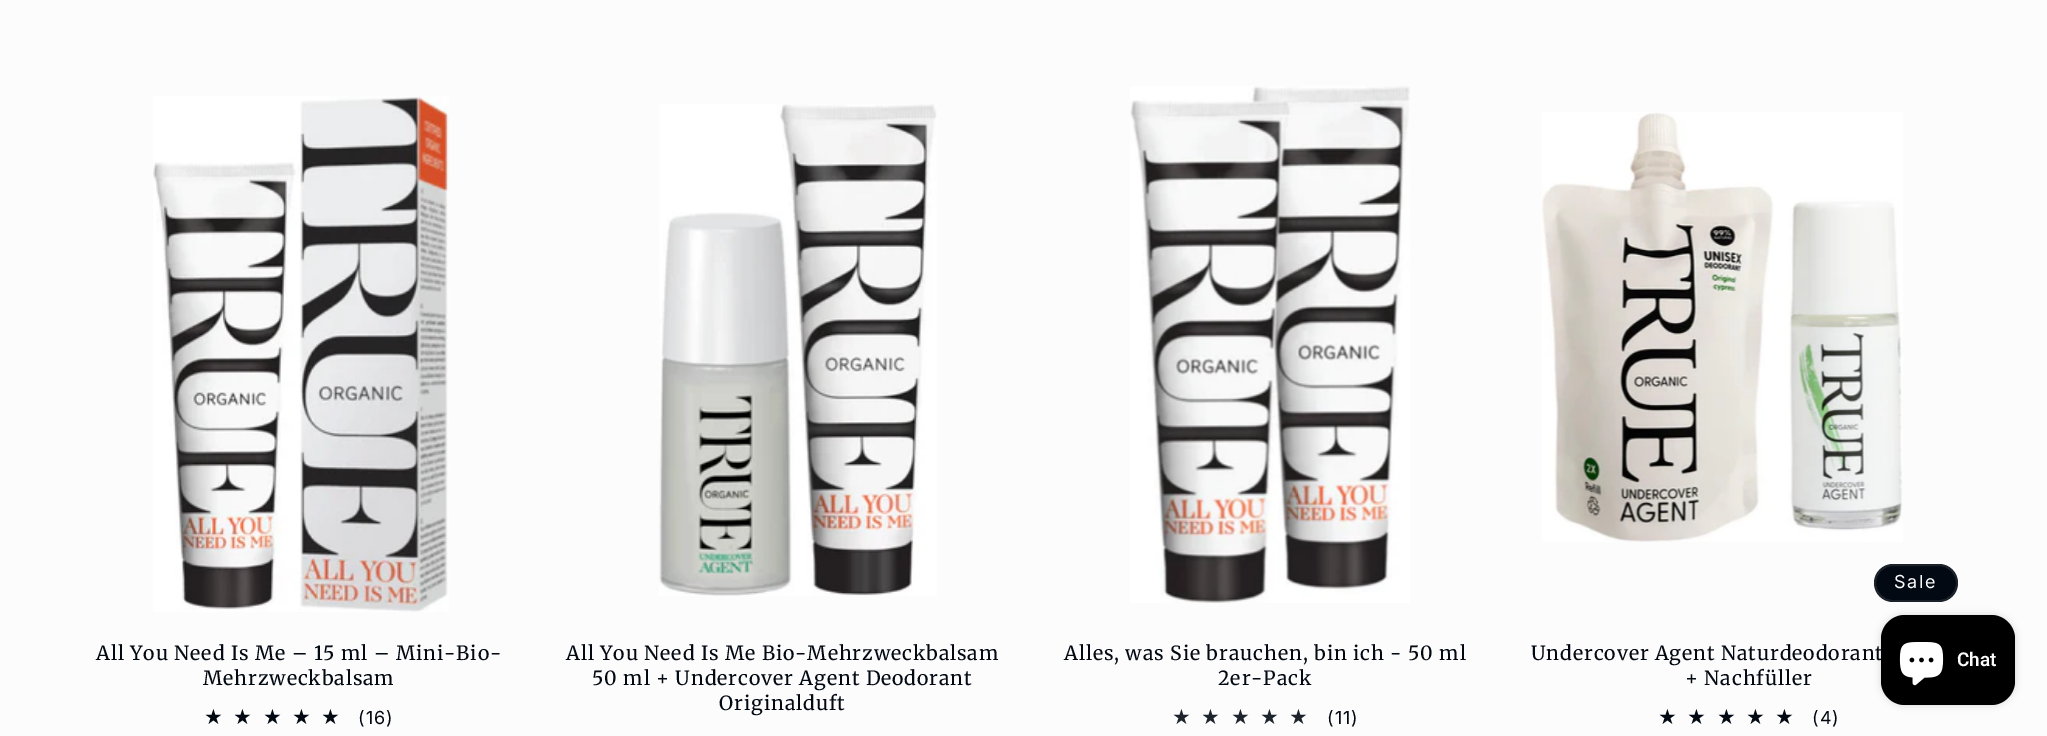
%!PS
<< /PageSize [2047 736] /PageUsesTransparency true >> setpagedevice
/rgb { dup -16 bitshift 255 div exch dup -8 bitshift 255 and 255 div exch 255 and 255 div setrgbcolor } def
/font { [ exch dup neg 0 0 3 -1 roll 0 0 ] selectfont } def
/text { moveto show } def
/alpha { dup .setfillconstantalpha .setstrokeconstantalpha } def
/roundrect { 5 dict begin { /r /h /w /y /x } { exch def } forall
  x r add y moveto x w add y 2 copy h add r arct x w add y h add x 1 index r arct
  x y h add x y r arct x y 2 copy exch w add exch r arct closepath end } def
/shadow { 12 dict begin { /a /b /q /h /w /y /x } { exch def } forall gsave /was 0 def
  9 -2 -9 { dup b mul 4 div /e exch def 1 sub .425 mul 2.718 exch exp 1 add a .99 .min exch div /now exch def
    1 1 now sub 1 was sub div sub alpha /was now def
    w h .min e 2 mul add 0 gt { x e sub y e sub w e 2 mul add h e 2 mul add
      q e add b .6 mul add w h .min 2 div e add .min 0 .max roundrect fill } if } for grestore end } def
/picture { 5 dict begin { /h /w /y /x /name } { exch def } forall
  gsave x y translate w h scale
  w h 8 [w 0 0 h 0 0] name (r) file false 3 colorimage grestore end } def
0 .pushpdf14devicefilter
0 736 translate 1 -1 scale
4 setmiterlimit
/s1 { /Roboto-SemiBold 19 font 16#FCFCFC rgb } def
16#FCFCFC rgb
0 0 2047 736 rectfill
(pic1.raw) 153 96 296 516 picture
/Merriweather-Regular 19.5 font
16#020912 rgb
96 660 moveto 0.9 0 (All You Need Is Me – 15 ml – Mini-Bio-) ashow
203 685 moveto 0.9 0 (Mehrzweckbalsam) ashow
/DejaVuSans-Regular 21 font
204 724 moveto 10.5 0 (★★★★★) ashow
/Inter-Regular 18 font
358 724 moveto 1 0 (\(16\)) ashow
(pic2.raw) 659 104 278 492 picture
/Merriweather-Regular 19.5 font
566 660 moveto 0.9 0 (All You Need Is Me Bio-Mehrzweckbalsam) ashow
592 685 moveto 0.9 0 (50 ml + Undercover Agent Deodorant) ashow
719 710 moveto 0.9 0 (Originalduft) ashow
(pic3.raw) 1130 86 280 517 picture
1064 660 moveto 0.9 0 (Alles, was Sie brauchen, bin ich - 50 ml) ashow
1218 685 moveto 0.9 0 (2er-Pack) ashow
/DejaVuSans-Regular 21 font
16#1E242C rgb
1172 724 moveto 10.5 0 (★★★★★) ashow
/Inter-Regular 18 font
16#020912 rgb
1327 724 moveto 1 0 (\(11\)) ashow
(pic4.raw) 1542 112 361 430 picture
1874 564 84 38 19 roundrect fill
0.1 alpha
16#FCFCFC rgb
2 setlinewidth
1875 565 82 36 18 roundrect stroke
1 alpha
1894 588 moveto 1.5 0 (Sale) ashow
/Merriweather-Regular 19.5 font
16#020912 rgb
1531 660 moveto 0.9 0 (Undercover Agent Naturdeodorant) ashow
1685 685 moveto 0.9 0 (+ Nachfüller) ashow
/DejaVuSans-Regular 21 font
1658 724 moveto 10.5 0 (★★★★★) ashow
/Inter-Regular 18 font
1812 724 moveto 1 0 (\(4\)) ashow
16#000000 rgb
1881 615 134 90 24 4 0.15 shadow
1881 615 134 90 24 roundrect fill
(pic5.raw) 1899 642 45 44 picture
s1
(Chat) 1957 666 text
.poppdf14devicefilter showpage
